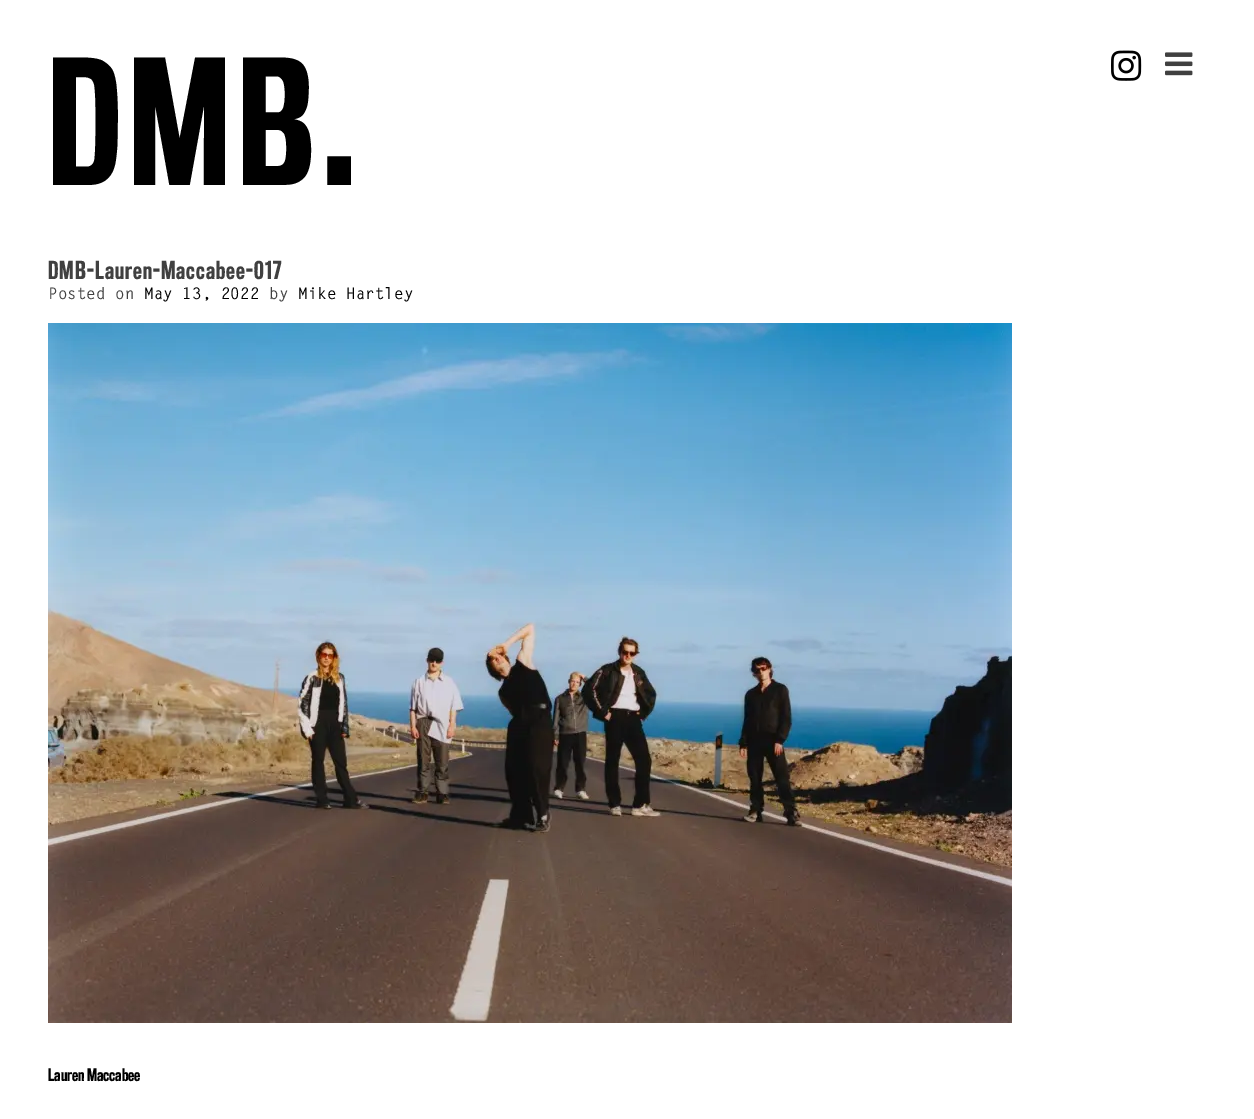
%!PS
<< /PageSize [1254 1119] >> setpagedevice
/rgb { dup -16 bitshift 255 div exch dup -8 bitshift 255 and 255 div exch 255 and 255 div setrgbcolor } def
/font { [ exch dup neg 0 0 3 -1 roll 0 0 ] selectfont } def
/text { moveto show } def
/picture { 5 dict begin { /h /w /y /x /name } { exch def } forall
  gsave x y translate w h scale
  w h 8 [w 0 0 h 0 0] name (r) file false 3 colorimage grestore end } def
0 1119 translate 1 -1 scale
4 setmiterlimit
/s1 { /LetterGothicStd-Bold 16 font 16#404040 rgb } def
/s2 { /LetterGothicStd-Bold 16 font 16#000000 rgb } def
/s3 { /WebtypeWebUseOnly-Medium 16 font 16#000000 rgb } def
16#FFFFFF rgb
0 0 1254 1119 rectfill
/WebtypeWebUseOnly-Medium 160 font
16#000000 rgb
48 185 moveto 8 0 (DMB.) ashow
(pic1.raw) 1111 50 31 31 picture
(pic2.raw) 1165 52 28 24 picture
/WebtypeWebUseOnly-Medium 22.75 font
16#404040 rgb
48 279 moveto 1.1 0 (DMB-Lauren-Maccabee-017) ashow
s1
(Posted on) 48 299 text
s2
(May 13, 2022) 144 299 text
s1
(by) 269 299 text
s2
(Mike Hartley) 298 299 text
(pic3.raw) 48 323 964 700 picture
s3
(Lauren Maccabee) 48 1081 text
showpage
